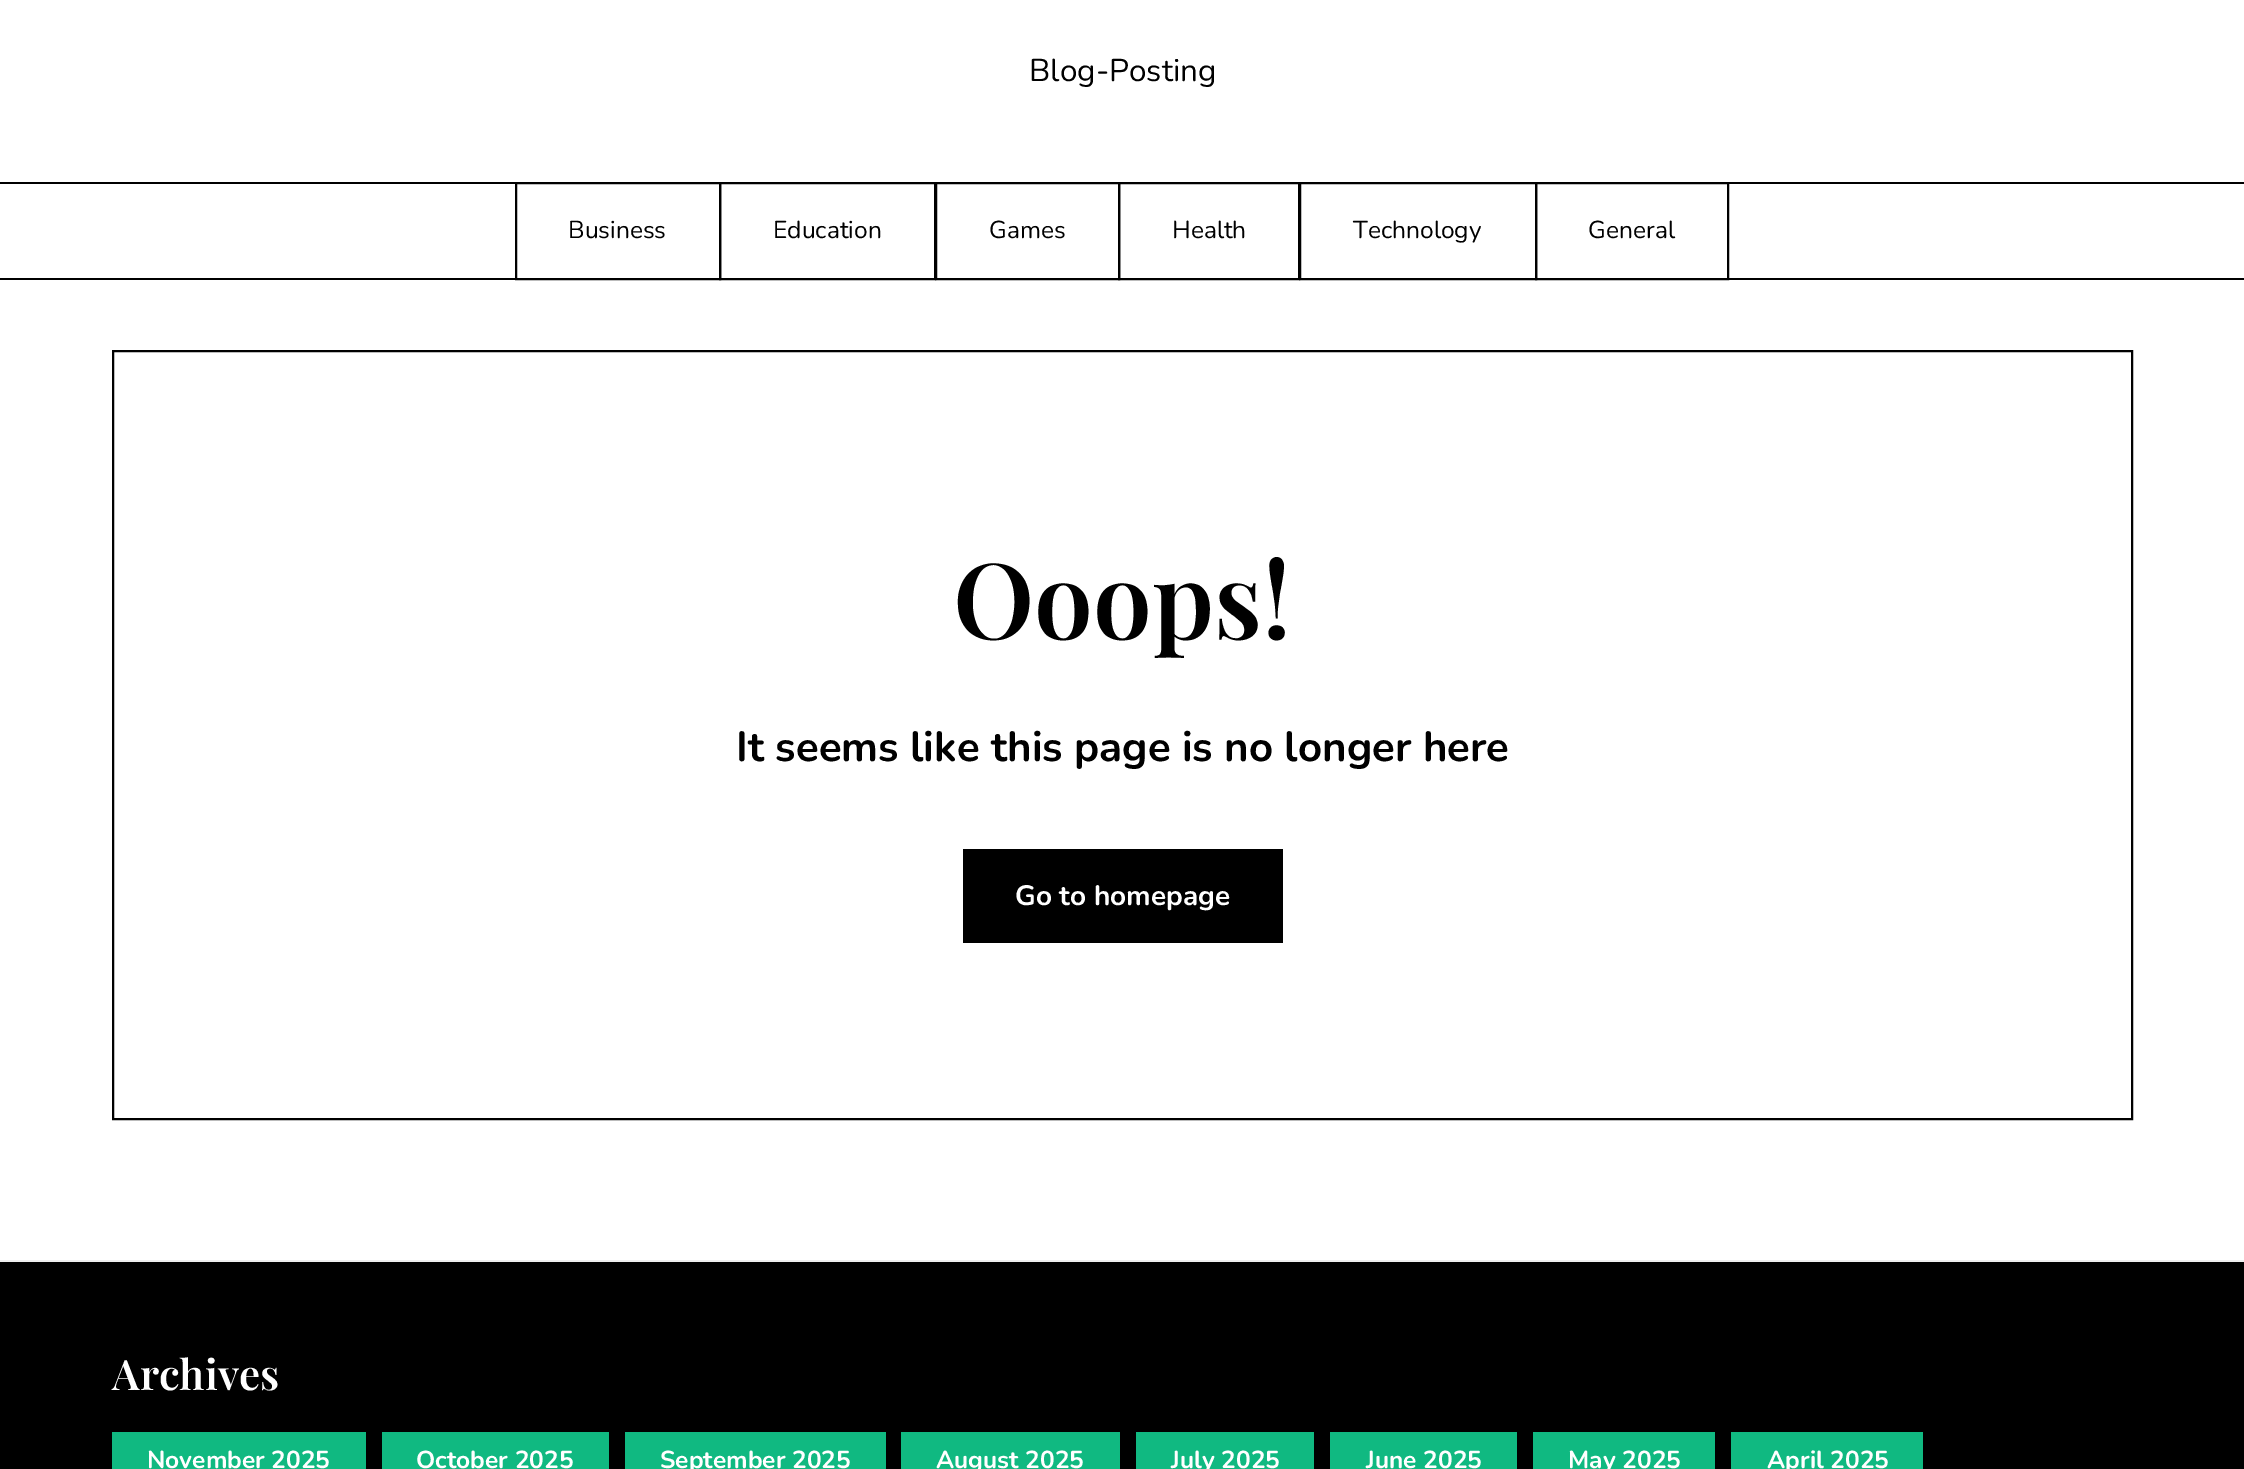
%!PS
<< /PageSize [2244 1469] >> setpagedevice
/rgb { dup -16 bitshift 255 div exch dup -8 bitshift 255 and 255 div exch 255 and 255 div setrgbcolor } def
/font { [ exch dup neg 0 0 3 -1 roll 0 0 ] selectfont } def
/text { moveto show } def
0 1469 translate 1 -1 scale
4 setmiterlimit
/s1 { /Nunito-Regular 31.5 font 16#000000 rgb } def
/s2 { /Nunito-Regular 24.5 font 16#000000 rgb } def
/s3 { /PlayfairDisplay-SemiBold 105 font 16#000000 rgb } def
/s4 { /Nunito-Bold 42 font 16#000000 rgb } def
/s5 { /Nunito-Bold 28 font 16#FFFFFF rgb } def
/s6 { /PlayfairDisplay-SemiBold 42 font 16#FFFFFF rgb } def
/s7 { /Nunito-Bold 24.5 font 16#FFFFFF rgb } def
16#FFFFFF rgb
0 0 2244 1469 rectfill
16#000000 rgb
0 278 2244 2 rectfill
s1
(Blog-Posting) 1029 81 text
0 182 2244 2 rectfill
2 setlinewidth
516 183 204 96 rectstroke
s2
(Business) 568 238 text
720 183 215 96 rectstroke
(Education) 773 238 text
936 183 183 96 rectstroke
(Games) 989 238 text
1119 183 180 96 rectstroke
(Health) 1172 238 text
1300 183 236 96 rectstroke
(Technology) 1353 238 text
1536 183 192 96 rectstroke
(General) 1588 238 text
113 351 2019 768 rectstroke
s3
(Ooops!) 953 639 text
s4
(It seems like this page is no longer here) 736 761 text
963 849 320 94 rectfill
s5
(Go to homepage) 1015 905 text
16#000000 rgb
0 1262 2244 207 rectfill
16#EFEFEF rgb
0 1260 2244 2 rectfill
s6
(Archives) 112 1390 text
16#10B981 rgb
112 1432 254 37 rectfill
s7
(November 2025) 147 1468 text
16#10B981 rgb
382 1432 227 37 rectfill
s7
(October 2025) 416 1468 text
16#10B981 rgb
625 1432 261 37 rectfill
s7
(September 2025) 660 1468 text
16#10B981 rgb
901 1432 219 37 rectfill
s7
(August 2025) 936 1468 text
16#10B981 rgb
1136 1432 178 37 rectfill
s7
(July 2025) 1171 1468 text
16#10B981 rgb
1330 1432 187 37 rectfill
s7
(June 2025) 1366 1468 text
16#10B981 rgb
1533 1432 182 37 rectfill
s7
(May 2025) 1568 1468 text
16#10B981 rgb
1731 1432 192 37 rectfill
s7
(April 2025) 1767 1468 text
showpage
